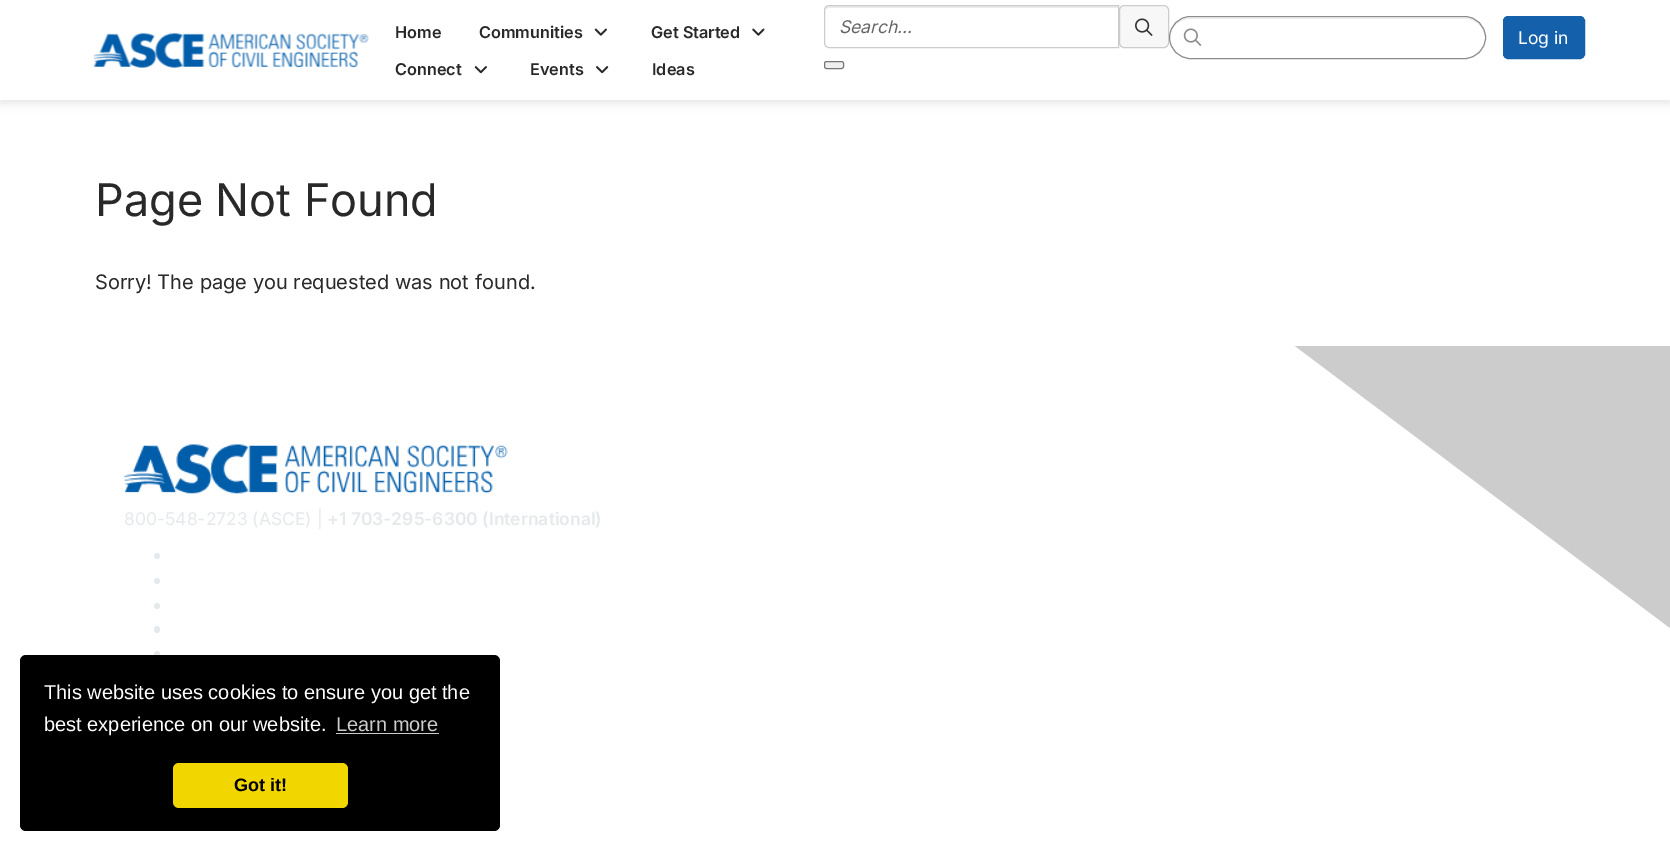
%!PS
<< /PageSize [1670 851] /PageUsesTransparency true >> setpagedevice
/rgb { dup -16 bitshift 255 div exch dup -8 bitshift 255 and 255 div exch 255 and 255 div setrgbcolor } def
/font { [ exch dup neg 0 0 3 -1 roll 0 0 ] selectfont } def
/text { moveto show } def
/alpha { dup .setfillconstantalpha .setstrokeconstantalpha } def
/circle { newpath 0 360 arc closepath } def
/roundrect { 5 dict begin { /r /h /w /y /x } { exch def } forall
  x r add y moveto x w add y 2 copy h add r arct x w add y h add x 1 index r arct
  x y h add x y r arct x y 2 copy exch w add exch r arct closepath end } def
/shadow { 12 dict begin { /a /b /q /h /w /y /x } { exch def } forall gsave /was 0 def
  9 -2 -9 { dup b mul 4 div /e exch def 1 sub .425 mul 2.718 exch exp 1 add a .99 .min exch div /now exch def
    1 1 now sub 1 was sub div sub alpha /was now def
    w h .min e 2 mul add 0 gt { x e sub y e sub w e 2 mul add h e 2 mul add
      q e add b .6 mul add w h .min 2 div e add .min 0 .max roundrect fill } if } for grestore end } def
/picture { 5 dict begin { /h /w /y /x /name } { exch def } forall
  gsave x y translate w h scale
  w h 8 [w 0 0 h 0 0] name (r) file false 3 colorimage grestore end } def
0 .pushpdf14devicefilter
0 851 translate 1 -1 scale
4 setmiterlimit
/s1 { /Inter-SemiBold 16.25 font 16#292929 rgb } def
/s2 { /Inter-Italic 17.5 font 16#666666 rgb } def
/s3 { /Inter-Regular 17.5 font 16#FFFFFF rgb } def
/s4 { /Inter-Regular 45 font 16#292929 rgb } def
/s5 { /Inter-Regular 20 font 16#292929 rgb } def
/s6 { /Inter-Regular 17.5 font 16#E5E9EB rgb } def
/s7 { /Inter-SemiBold 17.5 font 16#E5E9EB rgb } def
/s8 { /LiberationSans-Regular 20 font 16#FFFFFF rgb } def
/s9 { /LiberationSans-Regular 20 font 16#CCCCCC rgb } def
/s10 { /LiberationSans-Bold 18 font 16#000000 rgb } def
16#FFFFFF rgb
0 0 1670 851 rectfill
16#838791 rgb
0 3 1670 100 0 5 0.24 shadow
16#FFFFFF rgb
0 0 1670 100 rectfill
(pic1.raw) 93 32 276 36 picture
s1
(Home) 395 38 text
(Communities) 479 38 text
(pic2.raw) 594 28 13 8 picture
(Get Started) 651 38 text
(pic3.raw) 752 28 13 8 picture
(Connect) 395 75 text
(pic4.raw) 474 66 13 8 picture
(Events) 530 75 text
(pic5.raw) 596 66 13 8 picture
(Ideas) 652 75 text
16#ECECEC rgb
829 8 moveto 1118 8 lineto 1118 6 lineto 829 6 lineto 826 6 825 8 825 11 curveto 825 9 827 8 829 8 curveto closepath fill
16#CCCCCC rgb
829 5.5 moveto 1118.5 5.5 lineto 1118.5 47.5 lineto 829 47.5 lineto 826.5 47.5 824.5 45.5 824.5 43 curveto 824.5 10 lineto 824.5 7.5 826.5 5.5 829 5.5 curveto closepath stroke
s2
(Search...) 839 33 text
16#F7F7F7 rgb
1119.5 5.5 49 42 4.5 roundrect gsave fill grestore
16#CCCCCC rgb
stroke
(pic6.raw) 1135 18 18 18 picture
16#EFEFEF rgb
824.5 61.5 19 7 2 roundrect gsave fill grestore
16#767676 rgb
stroke
16#ECECEC rgb
1190 19 moveto 1465 19 lineto 1476 19 1485 28 1485 39 curveto 1485 27 1476 18 1465 18 curveto 1190 18 lineto 1179 18 1170 27 1170 39 curveto 1170 28 1179 19 1190 19 curveto closepath fill
16#8C8C8C rgb
1169.5 16.5 316 42 21 roundrect stroke
(pic7.raw) 1183 28 19 18 picture
16#1460AA rgb
1503.5 16.5 81 42 4.5 roundrect gsave fill grestore
stroke
s3
(Log in) 1518 44 text
s4
(Page Not Found) 95 216 text
s5
(Sorry! The page you requested was not found.) 95 289 text
(pic8.raw) 123 444 385 50 picture
s6
(800-548-2723 \(ASCE\) |) 124 525 text
s7
(+1 703-295-6300 \(International\)) 327 525 text
157 556 3 circle fill
157 581 3 circle fill
157 606 3 circle fill
154 626 6 7 3 roundrect fill
154 651 6 7 3 roundrect fill
16#CCCCCC rgb
1670 346 moveto 1670 628 lineto 1295 346 lineto closepath fill
16#000000 rgb
20 655 480 176 6 roundrect fill
s8
(This website uses cookies to ensure you get the) 44 699 text
(best experience on our website.) 44 731 text
s9
(Learn more) 336 731 text
336 733 103 1 rectfill
16#F1D600 rgb
173 763 175 45 6 roundrect fill
s10
(Got it!) 234 791 text
.poppdf14devicefilter showpage
